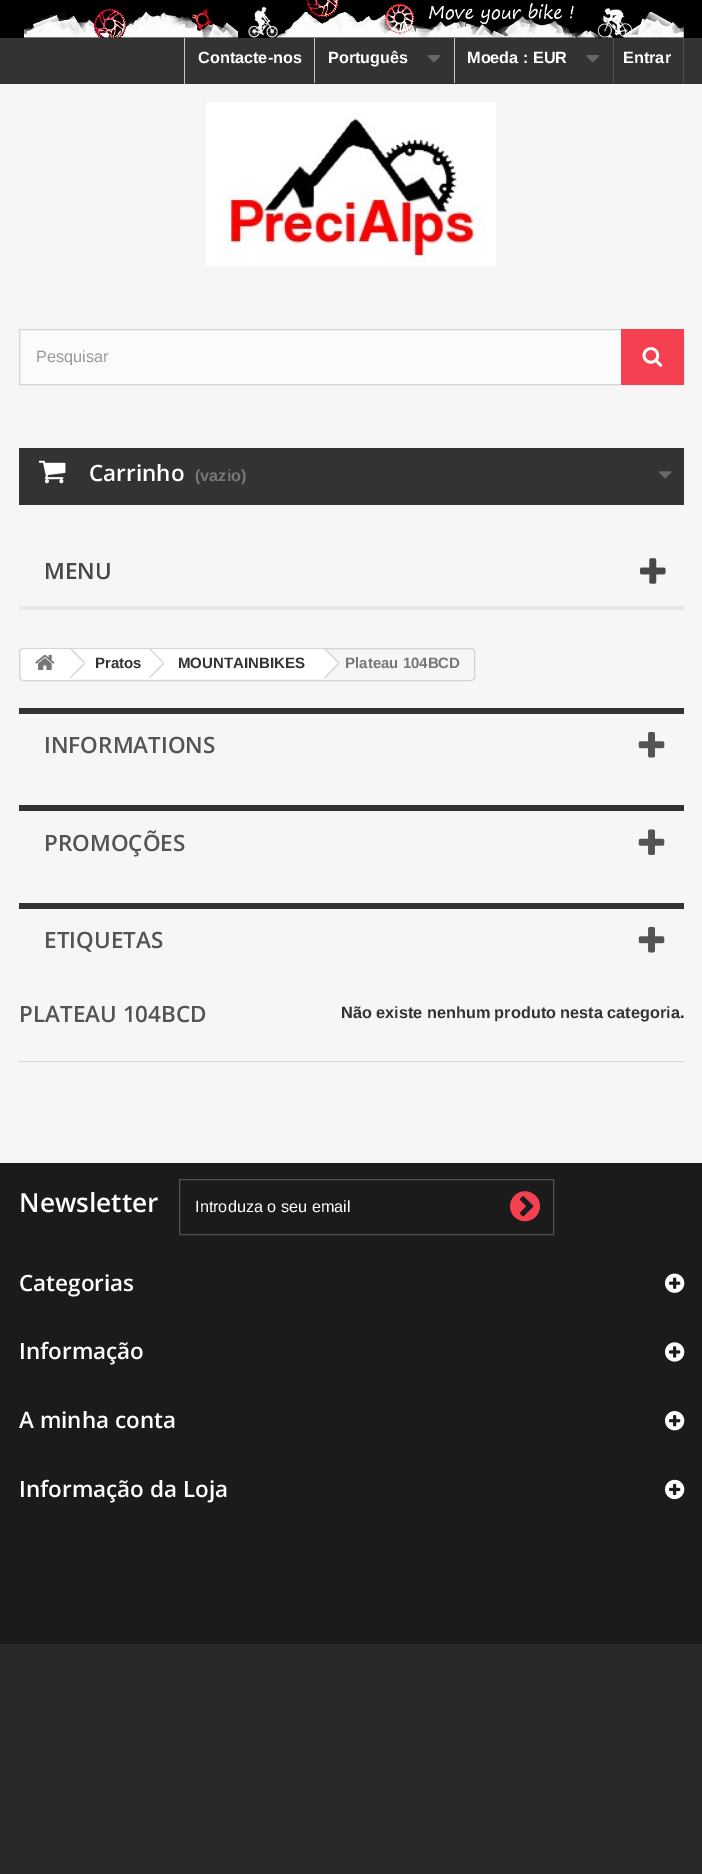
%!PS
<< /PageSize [702 1874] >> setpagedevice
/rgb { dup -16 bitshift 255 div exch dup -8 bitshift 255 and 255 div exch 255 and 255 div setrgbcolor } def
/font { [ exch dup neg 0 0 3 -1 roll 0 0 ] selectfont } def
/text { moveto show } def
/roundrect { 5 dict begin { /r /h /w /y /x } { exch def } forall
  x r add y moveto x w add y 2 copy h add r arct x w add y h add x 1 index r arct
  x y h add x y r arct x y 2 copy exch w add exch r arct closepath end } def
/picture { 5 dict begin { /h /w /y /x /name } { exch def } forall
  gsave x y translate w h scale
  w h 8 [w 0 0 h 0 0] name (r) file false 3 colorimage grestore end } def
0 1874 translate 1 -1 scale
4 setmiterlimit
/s1 { /LiberationSans-Bold 16.25 font 16#FFFFFF rgb } def
/s2 { /LiberationSans-Regular 16.25 font 16#999999 rgb } def
/s3 { /OpenSans-SemiBold 22.5 font 16#FFFFFF rgb } def
/s4 { /LiberationSans-Bold 16.25 font 16#777777 rgb } def
/s5 { /OpenSans-SemiBold 22.5 font 16#484848 rgb } def
/s6 { /LiberationSans-Bold 15 font 16#333333 rgb } def
/s7 { /LiberationSans-Bold 15 font 16#777777 rgb } def
/s8 { /OpenSans-SemiBold 22.5 font 16#555454 rgb } def
/s9 { /LiberationSans-Bold 16.25 font 16#333333 rgb } def
/s10 { /OpenSans-SemiBold 26.25 font 16#FFFFFF rgb } def
/s11 { /LiberationSans-Regular 16.25 font 16#FFFFFF rgb } def
16#282828 rgb
0 0 702 1874 rectfill
16#F6F6F6 rgb
0 84 702 1079 rectfill
16#000000 rgb
0 0 702 38 rectfill
(pic1.raw) 24 0 660 38 picture
16#333333 rgb
0 38 702 46 rectfill
16#C6C6C6 rgb
184 38 1 46 rectfill
s1
(Contacte-nos) 198 63 text
16#C6C6C6 rgb
314 38 1 45 rectfill
s1
(Português) 328 63 text
(pic2.raw) 427 55 14 7 picture
16#C6C6C6 rgb
454 38 1 45 rectfill
s1
(Moeda : EUR) 467 63 text
(pic3.raw) 586 55 13 8 picture
16#515151 rgb
683 38 1 46 rectfill
613 38 1 46 rectfill
s1
(Entrar) 623 63 text
(pic4.raw) 206 102 290 164 picture
16#FBFBFB rgb
20 330 601 54 rectfill
16#D6D4D4 rgb
19.5 329.5 664 55 rectstroke
s2
(Pesquisar) 36 362 text
16#F44051 rgb
621 329 63 56 rectfill
(pic5.raw) 642 347 21 20 picture
16#333333 rgb
19 448 665 57 rectfill
(pic6.raw) 38 460 28 24 picture
s3
(Carrinho) 89 481 text
s4
(\(vazio\)) 195 481 text
(pic7.raw) 658 471 14 8 picture
16#E9E9E9 rgb
19 606 665 4 rectfill
s5
(MENU) 44 579 text
(pic8.raw) 640 558 26 26 picture
16#D6D4D4 rgb
19.5 648.5 455 32 3.5 roundrect stroke
16#FFFFFF rgb
25 649 moveto 69 649 lineto 69 680 lineto 25 680 lineto 23 680 21 678 21 676 curveto 21 653 lineto 21 651 23 649 25 649 curveto closepath fill
(pic9.raw) 35 654 20 16 picture
69 649 81 30 rectfill
16#D6D4D4 rgb
72 649 moveto 85 662.5 lineto 84 663 lineto 70 649 lineto closepath 84 663 moveto 85 664 lineto 71 678 lineto 70 677.5 lineto closepath fill
s6
(Pratos) 95 668 text
16#FFFFFF rgb
163 649 moveto 159.5 649 lineto 147 661.5 lineto 146 662.5 146 664 147 665 curveto 159.5 677.5 lineto 160.5 678.5 162 678.5 163 677.5 curveto 175.5 665 lineto 176.5 664 176.5 662.5 175.5 661.5 curveto closepath fill
150 649 173 30 rectfill
16#D6D4D4 rgb
150.5 649 moveto 164 662.5 lineto 163 663 lineto 149 649 lineto closepath 163 663 moveto 164 664 lineto 149.5 678 lineto 149 677.5 lineto closepath fill
s6
(MOUNTAINBIKES) 178 668 text
16#FFFFFF rgb
326 649 moveto 322.5 649 lineto 310 661.5 lineto 309 662.5 309 664 310 665 curveto 322.5 677.5 lineto 323.5 678.5 325 678.5 326 677.5 curveto 338.5 665 lineto 339.5 664 339.5 662.5 338.5 661.5 curveto closepath fill
16#D6D4D4 rgb
326 649 moveto 339.5 662.5 lineto 338.5 663 lineto 324 649 lineto closepath 338.5 663 moveto 339.5 664 lineto 325 678 lineto 324 677.5 lineto closepath fill
s7
(Plateau 104BCD) 345 668 text
16#333333 rgb
19 708 665 6 rectfill
s8
(INFORMATIONS) 44 753 text
(pic10.raw) 638 731 27 27 picture
16#333333 rgb
19 805 665 6 rectfill
s8
(PROMOÇÕES) 44 851 text
(pic11.raw) 638 829 27 26 picture
16#333333 rgb
19 903 665 6 rectfill
s8
(ETIQUETAS) 44 948 text
(pic10.raw) 638 926 27 27 picture
16#D6D4D4 rgb
19 1061 665 1 rectfill
s8
(PLATEAU 104BCD) 19 1022 text
s9
(Não existe nenhum produto nesta categoria.) 341 1018 text
16#1B1B1B rgb
0 1163 702 481 rectfill
s10
(Newsletter) 19 1212 text
16#515151 rgb
179.5 1179.5 374 55 rectstroke
s11
(Introduza o seu email) 195 1212 text
(pic12.raw) 510 1191 30 31 picture
s3
(Categorias) 19 1291 text
(pic13.raw) 665 1273 20 20 picture
(Informação) 19 1359 text
(pic14.raw) 665 1342 20 20 picture
(A minha conta) 19 1428 text
(pic15.raw) 665 1411 20 20 picture
(Informação da Loja) 19 1497 text
(pic16.raw) 665 1479 20 21 picture
showpage
